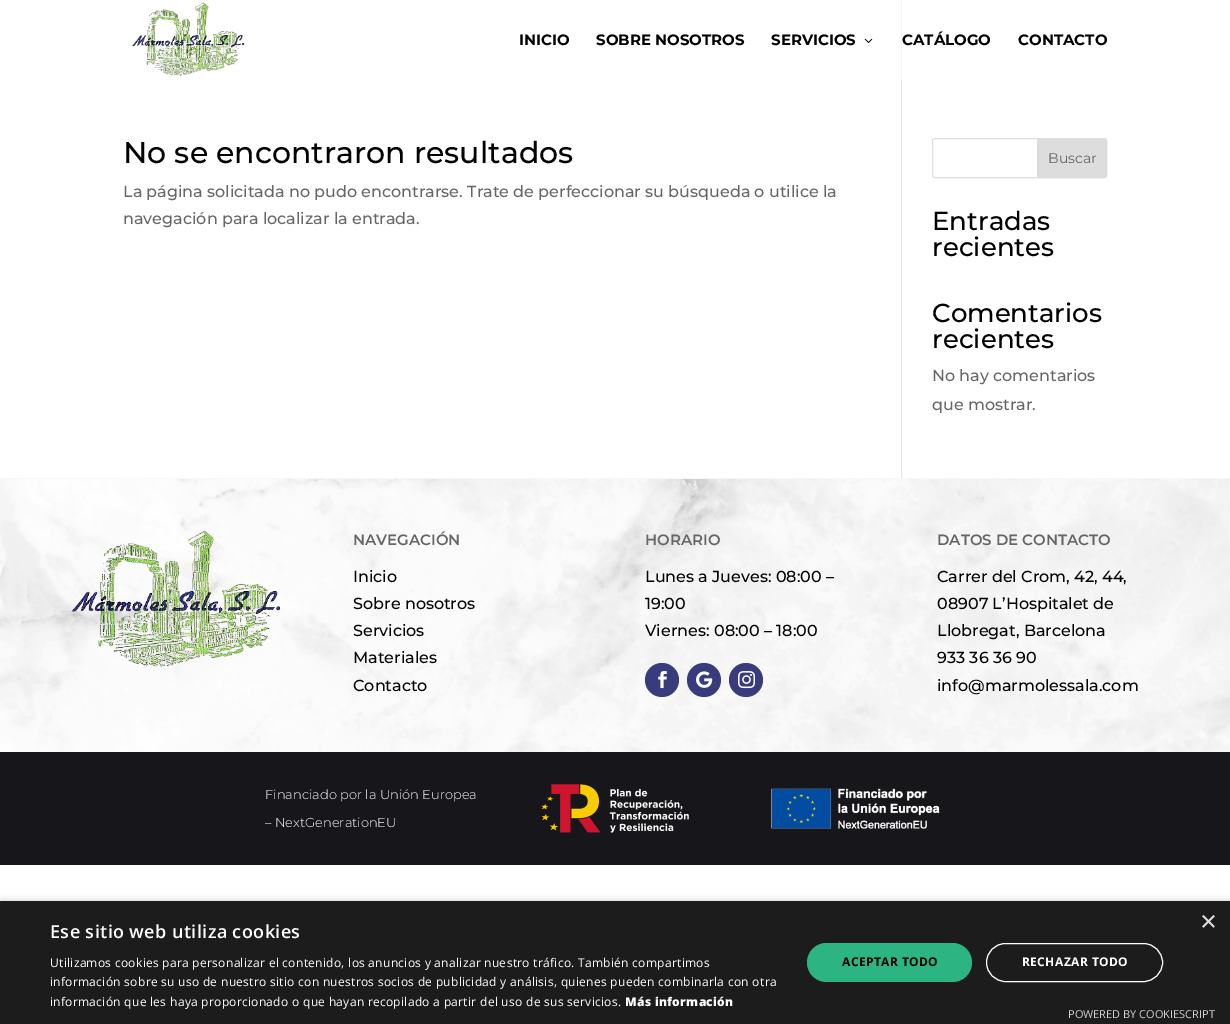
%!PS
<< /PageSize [1230 1024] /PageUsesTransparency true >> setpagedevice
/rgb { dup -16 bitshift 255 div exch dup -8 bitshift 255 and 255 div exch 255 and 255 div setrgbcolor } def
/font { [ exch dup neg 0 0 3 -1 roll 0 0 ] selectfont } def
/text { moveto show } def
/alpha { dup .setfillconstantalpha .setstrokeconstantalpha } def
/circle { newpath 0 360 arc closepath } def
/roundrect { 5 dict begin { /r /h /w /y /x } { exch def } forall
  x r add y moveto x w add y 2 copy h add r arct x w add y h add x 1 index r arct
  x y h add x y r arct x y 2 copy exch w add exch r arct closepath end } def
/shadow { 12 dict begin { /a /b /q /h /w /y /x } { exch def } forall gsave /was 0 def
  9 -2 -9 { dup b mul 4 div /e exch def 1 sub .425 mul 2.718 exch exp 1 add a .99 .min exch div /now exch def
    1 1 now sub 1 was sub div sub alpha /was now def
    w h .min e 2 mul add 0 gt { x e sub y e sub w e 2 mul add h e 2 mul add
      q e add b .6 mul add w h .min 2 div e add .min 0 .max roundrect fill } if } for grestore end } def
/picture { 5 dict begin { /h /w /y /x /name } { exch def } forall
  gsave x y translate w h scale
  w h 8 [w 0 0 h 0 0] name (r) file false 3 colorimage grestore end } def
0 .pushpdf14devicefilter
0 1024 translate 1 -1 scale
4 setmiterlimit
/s1 { /Montserrat-Bold 15 font 16#000000 rgb } def
/s2 { /Montserrat-Medium 30 font 16#000000 rgb } def
/s3 { /Montserrat-Medium 16 font 16#666666 rgb } def
/s4 { /Montserrat-Regular 14 font 16#666666 rgb } def
/s5 { /Montserrat-Medium 26 font 16#000000 rgb } def
/s6 { /Montserrat-SemiBold 15 font 16#666666 rgb } def
/s7 { /Montserrat-Medium 16 font 16#000000 rgb } def
/s8 { /Montserrat-Light 13 font 16#FFFFFF rgb } def
/s9 { /LiberationSans-Regular 29 font 16#DDDDDD rgb } def
/s10 { /OpenSans-Regular 11 font 16#D2D2D2 rgb } def
16#FFFFFF rgb
0 0 1230 1024 rectfill
(pic1.raw) 132 2 113 74 picture
s1
(INICIO) 519 45 text
(SOBRE NOSOTROS) 596 45 text
(SERVICIOS) 771 45 text
(pic2.raw) 864 38 9 5 picture
(CATÁLOGO) 902 45 text
(CONTACTO) 1018 45 text
16#E2E2E2 rgb
901 80 1 398 rectfill
16#F4F4F4 rgb
901 0 1 80 rectfill
s2
(No se encontraron resultados) 123 163 text
s3
(La página solicitada no pudo encontrarse. Trate de perfeccionar su búsqueda o utilice la) 123 197 text
(navegación para localizar la entrada.) 123 224 text
16#DDDDDD rgb
932.5 138.5 174 39 2.5 roundrect stroke
1037.5 138.5 moveto 1104 138.5 lineto 1105.5 138.5 1106.5 139.5 1106.5 141 curveto 1106.5 175 lineto 1106.5 176.5 1105.5 177.5 1104 177.5 curveto 1037.5 177.5 lineto closepath gsave fill grestore
stroke
s4
(Buscar) 1048 163 text
s5
(Entradas) 932 230 text
(recientes) 932 256 text
(Comentarios) 932 322 text
(recientes) 932 348 text
s3
(No hay comentarios) 932 381 text
(que mostrar.) 932 410 text
(pic3.raw) 0 479 1230 273 picture
16#F7F7F7 rgb
0 478 1230 1 rectfill
(pic4.raw) 72 530 209 138 picture
s6
(NAVEGACIÓN) 353 545 text
s7
(Inicio) 353 582 text
(Sobre nosotros) 353 609 text
(Servicios) 353 636 text
(Materiales) 353 663 text
(Contacto) 353 691 text
s6
(HORARIO) 645 545 text
s7
(Lunes a Jueves: 08:00 –) 645 582 text
(19:00) 645 609 text
(Viernes: 08:00 – 18:00) 645 636 text
16#383B7C rgb
662 680 17 circle fill
(pic5.raw) 658 671 9 18 picture
704 680 17 circle fill
(pic6.raw) 696 671 17 17 picture
746 680 17 circle fill
(pic7.raw) 738 671 17 18 picture
s6
(DATOS DE CONTACTO) 937 545 text
s7
(Carrer del Crom, 42, 44,) 937 582 text
(08907 L’Hospitalet de) 937 609 text
(Llobregat, Barcelona) 937 636 text
(933 36 36 90) 937 663 text
(info@marmolessala.com) 937 691 text
16#17161A rgb
0 752 1230 113 rectfill
s8
(Financiado por la Unión Europea) 265 799 text
(– NextGenerationEU) 265 827 text
(pic8.raw) 541 784 148 49 picture
(pic9.raw) 771 788 169 41 picture
16#000000 rgb
1 903 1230 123 0 4 0.35 shadow
16#1C1C1C rgb
0 901 1230 123 rectfill
s9
(×) 1200 931 text
/OpenSans-SemiBold 18 font
16#FFFFFF rgb
50 938 moveto 0.4 0 (Ese sitio web utiliza cookies) ashow
/OpenSans-Regular 12 font
50 967 moveto 0.3 0 (Utilizamos cookies para personalizar el contenido, los anuncios y analizar nuestro tráfico. También compartimos) ashow
50 986 moveto 0.3 0 (información sobre su uso de nuestro sitio con nuestros socios de publicidad y análisis, quienes pueden combinarla con otra) ashow
50 1006 moveto 0.3 0 (información que les haya proporcionado o que hayan recopilado a partir del uso de sus servicios.) ashow
/OpenSans-ExtraBold 12 font
625 1006 moveto 0.3 0 (Más información) ashow
16#2DB483 rgb
807 943 165 39 19.5 roundrect fill
/OpenSans-Bold 12 font
16#000000 rgb
842 966 moveto 0.4 0 (ACEPTAR TODO) ashow
16#FFFFFF rgb
986.5 943.5 176 38 19 roundrect stroke
1022 966 moveto 0.4 0 (RECHAZAR TODO) ashow
s10
(POWERED BY COOKIESCRIPT) 1068 1018 text
.poppdf14devicefilter showpage
